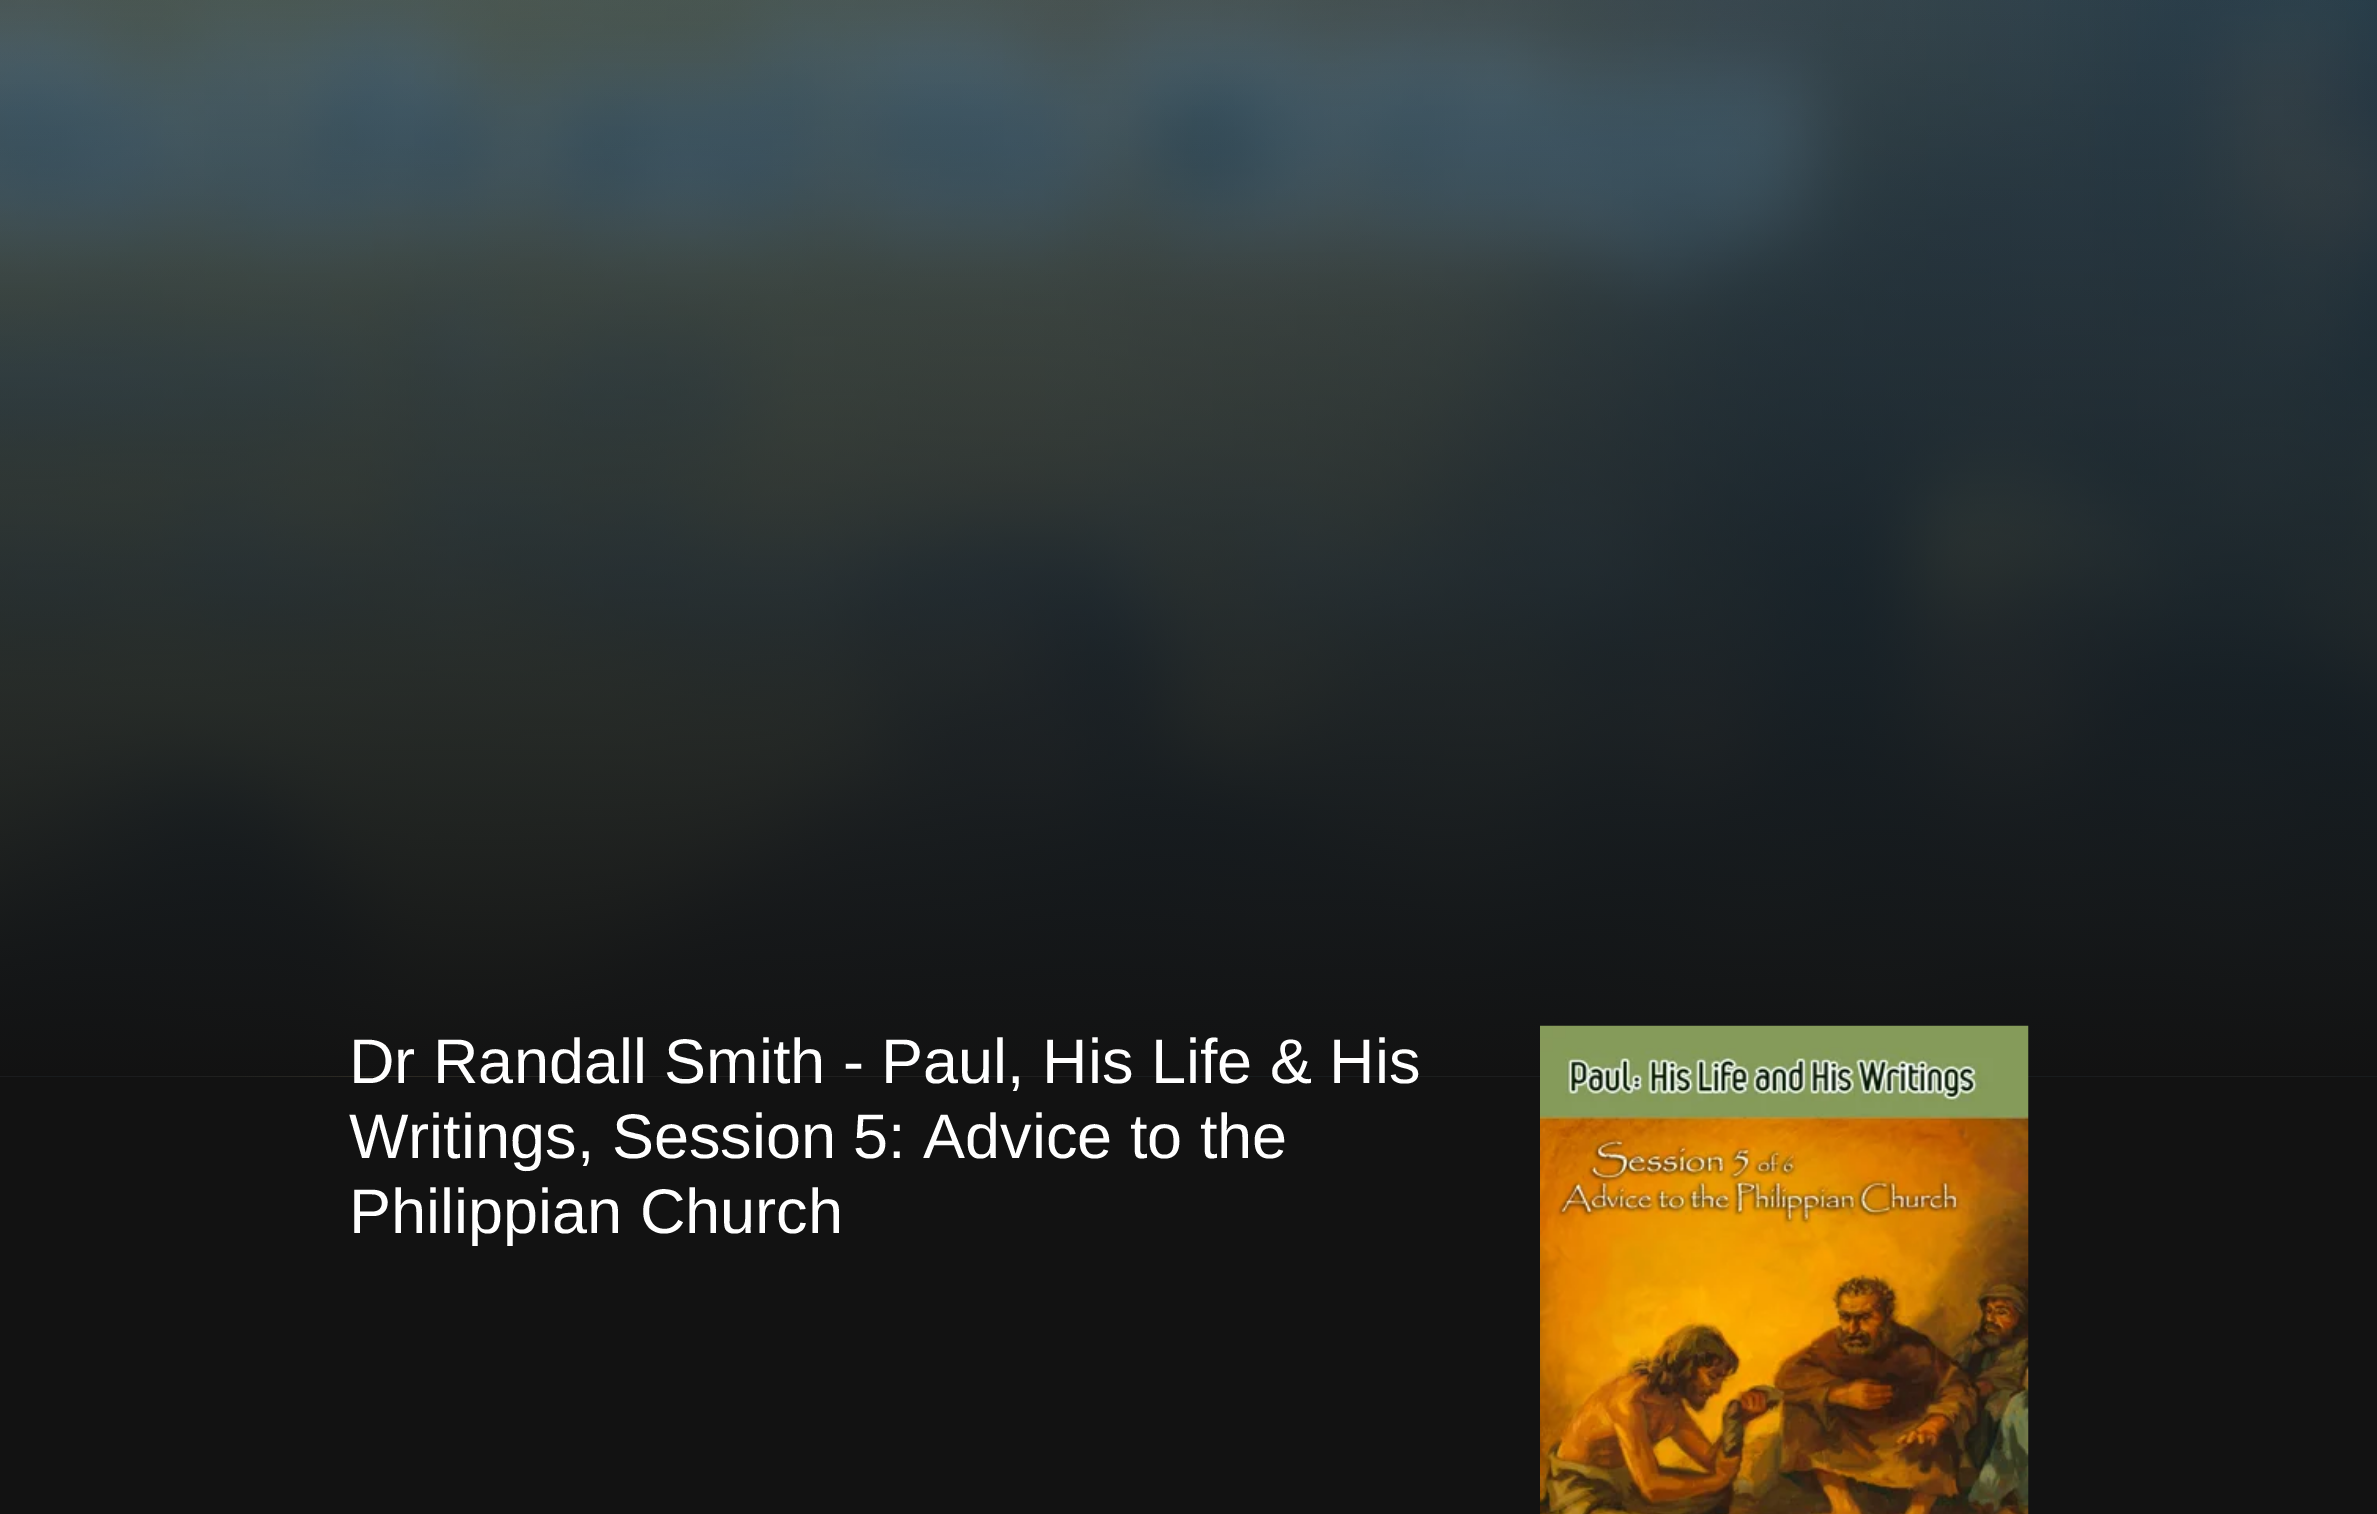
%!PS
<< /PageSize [2377 1514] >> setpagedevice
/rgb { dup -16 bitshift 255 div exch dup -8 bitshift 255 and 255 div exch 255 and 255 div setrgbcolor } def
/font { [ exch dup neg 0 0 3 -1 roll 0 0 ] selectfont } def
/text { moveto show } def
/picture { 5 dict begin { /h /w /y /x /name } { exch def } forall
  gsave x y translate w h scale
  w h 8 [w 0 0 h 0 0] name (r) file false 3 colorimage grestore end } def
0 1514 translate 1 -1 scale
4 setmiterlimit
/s1 { /LiberationSans-Regular 63 font 16#FFFFFF rgb } def
16#121212 rgb
0 0 2377 1514 rectfill
(pic1.raw) 0 0 2377 1077 picture
s1
(Dr Randall Smith - Paul, His Life & His) 349 1083 text
(Writings, Session 5: Advice to the) 349 1158 text
(Philippian Church) 349 1233 text
(pic2.raw) 1540 1025 489 489 picture
showpage
